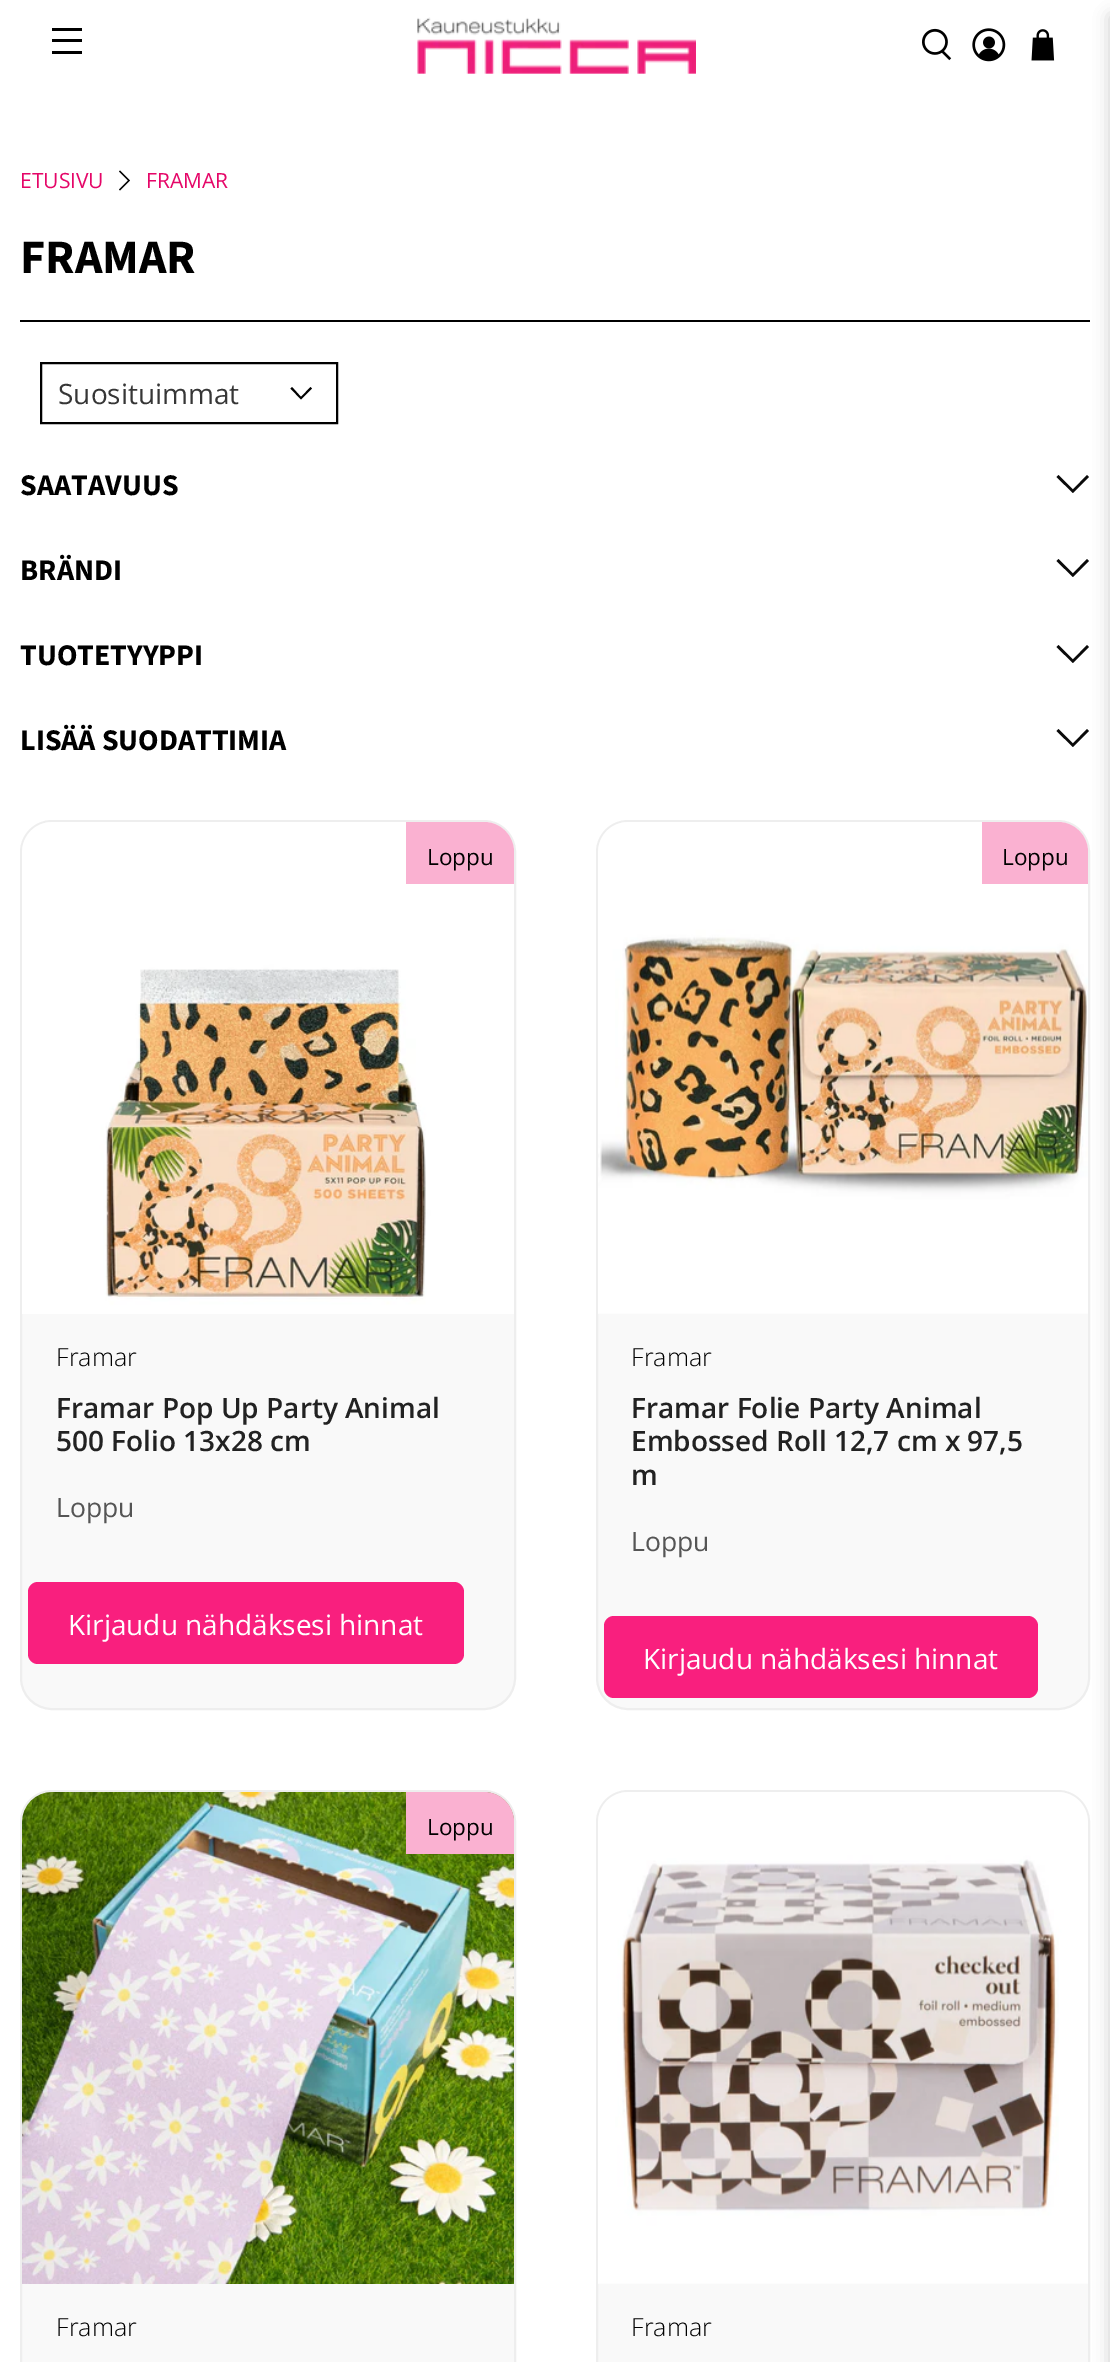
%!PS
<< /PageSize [1110 2362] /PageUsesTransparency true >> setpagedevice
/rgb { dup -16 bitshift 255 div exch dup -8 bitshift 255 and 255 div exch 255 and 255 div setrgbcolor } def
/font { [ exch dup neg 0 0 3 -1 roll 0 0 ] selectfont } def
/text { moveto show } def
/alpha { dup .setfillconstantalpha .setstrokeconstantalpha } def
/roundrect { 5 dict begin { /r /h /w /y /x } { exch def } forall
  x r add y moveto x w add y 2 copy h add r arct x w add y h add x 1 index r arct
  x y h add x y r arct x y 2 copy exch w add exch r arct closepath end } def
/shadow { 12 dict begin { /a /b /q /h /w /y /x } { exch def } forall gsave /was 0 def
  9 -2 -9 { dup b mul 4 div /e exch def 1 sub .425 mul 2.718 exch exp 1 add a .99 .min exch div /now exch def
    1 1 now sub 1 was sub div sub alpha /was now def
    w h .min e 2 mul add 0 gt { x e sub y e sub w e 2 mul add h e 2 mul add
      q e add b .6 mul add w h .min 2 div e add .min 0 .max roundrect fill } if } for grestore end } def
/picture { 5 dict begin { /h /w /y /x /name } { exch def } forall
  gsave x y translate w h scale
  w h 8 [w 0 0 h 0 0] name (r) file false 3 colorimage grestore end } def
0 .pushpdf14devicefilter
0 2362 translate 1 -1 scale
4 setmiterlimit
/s1 { /OpenSans-Regular 21 font 16#E50668 rgb } def
/s2 { /SourceSansPro-Bold 48 font 16#000000 rgb } def
/s3 { /OpenSans-Regular 28 font 16#363636 rgb } def
/s4 { /SourceSansPro-Bold 30 font 16#000000 rgb } def
/s5 { /OpenSans-Regular 22.5 font 16#000000 rgb } def
/s6 { /OpenSans-Light 25 font 16#000000 rgb } def
/s7 { /OpenSans-SemiBold 28 font 16#222222 rgb } def
/s8 { /OpenSans-Regular 26.5 font 16#555555 rgb } def
/s9 { /OpenSans-Regular 28 font 16#FFFFFF rgb } def
16#FFFFFF rgb
0 0 1110 2362 rectfill
16#000000 rgb
52 28 30 3 rectfill
52 39 30 3 rectfill
52 51 30 3 rectfill
(pic1.raw) 417 17 279 57 picture
(pic2.raw) 922 28 30 33 picture
(pic3.raw) 972 28 34 34 picture
(pic4.raw) 1031 29 24 32 picture
20 320 1070 2 rectfill
16#0A0A0A rgb
1073 493 moveto 1056.5 477 lineto 1058.5 475 lineto 1073 489.5 lineto 1087 475 lineto 1089 477 lineto closepath fill
1073 577 moveto 1056.5 561 lineto 1058.5 559 lineto 1073 573.5 lineto 1087 559 lineto 1089 561 lineto closepath fill
1073 663 moveto 1056.5 647 lineto 1058.5 645 lineto 1073 659.5 lineto 1087 645 lineto 1089 647 lineto closepath fill
1073 747 moveto 1056.5 731 lineto 1058.5 729 lineto 1073 743.5 lineto 1087 729 lineto 1089 731 lineto closepath fill
16#F9F9F9 rgb
597 821 492 888 31 roundrect gsave fill grestore
16#EEEEEE rgb
2 setlinewidth
stroke
(pic6.raw) 598 822 490 492 picture
16#FAB1D1 rgb
982 822 moveto 1058 822 lineto 1074.5 822 1088 835.5 1088 852 curveto 1088 884 lineto 982 884 lineto closepath fill
16#F9F9F9 rgb
597 1791 492 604 31 roundrect gsave fill grestore
16#EEEEEE rgb
stroke
(pic8.raw) 598 1792 490 492 picture
16#0A0A0A rgb
1110 16 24 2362 0 8 0.1 shadow
s1
(ETUSIVU) 20 188 text
16#000000 rgb
120 190.5 moveto 119 189.5 lineto 128 180.5 lineto 119 171.5 lineto 120 170.5 lineto 130 180.5 lineto closepath fill
s1
(FRAMAR) 146 188 text
s2
(FRAMAR) 20 273 text
41 363 296 60 rectstroke
s3
(Suosituimmat) 58 404 text
16#000000 rgb
301 399.5 moveto 290.5 388.5 lineto 292 387 lineto 301 397 lineto 310.5 387 lineto 312 388.5 lineto closepath fill
s4
(SAATAVUUS) 20 495 text
(BRÄNDI) 20 580 text
(TUOTETYYPPI) 20 665 text
(LISÄÄ SUODATTIMIA) 20 750 text
16#F9F9F9 rgb
21 821 494 888 31 roundrect gsave fill grestore
16#EEEEEE rgb
stroke
(pic5.raw) 22 822 492 492 picture
16#FAB1D1 rgb
406 822 moveto 484 822 lineto 500.5 822 514 835.5 514 852 curveto 514 884 lineto 406 884 lineto closepath fill
s5
(Loppu) 427 865 text
s6
(Framar) 56 1366 text
s7
(Framar Pop Up Party Animal) 56 1418 text
(500 Folio 13x28 cm) 56 1451 text
s8
(Loppu) 56 1517 text
16#F91F7E rgb
28 1582 436 82 10 roundrect fill
s9
(Kirjaudu nähdäksesi hinnat) 68 1635 text
s5
(Loppu) 1002 865 text
s6
(Framar) 631 1366 text
s7
(Framar Folie Party Animal) 631 1418 text
(Embossed Roll 12,7 cm x 97,5) 631 1451 text
(m) 631 1485 text
s8
(Loppu) 631 1551 text
16#F91F7E rgb
604 1616 434 82 10 roundrect fill
s9
(Kirjaudu nähdäksesi hinnat) 643 1669 text
16#F9F9F9 rgb
21 1791 494 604 31 roundrect gsave fill grestore
16#EEEEEE rgb
stroke
(pic7.raw) 22 1792 492 492 picture
16#FAB1D1 rgb
406 1792 moveto 484 1792 lineto 500.5 1792 514 1805.5 514 1822 curveto 514 1854 lineto 406 1854 lineto closepath fill
s5
(Loppu) 427 1835 text
s6
(Framar) 56 2336 text
(Framar) 631 2336 text
16#0A0A0A rgb
1110 16 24 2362 0 8 0.1 shadow
.poppdf14devicefilter showpage
